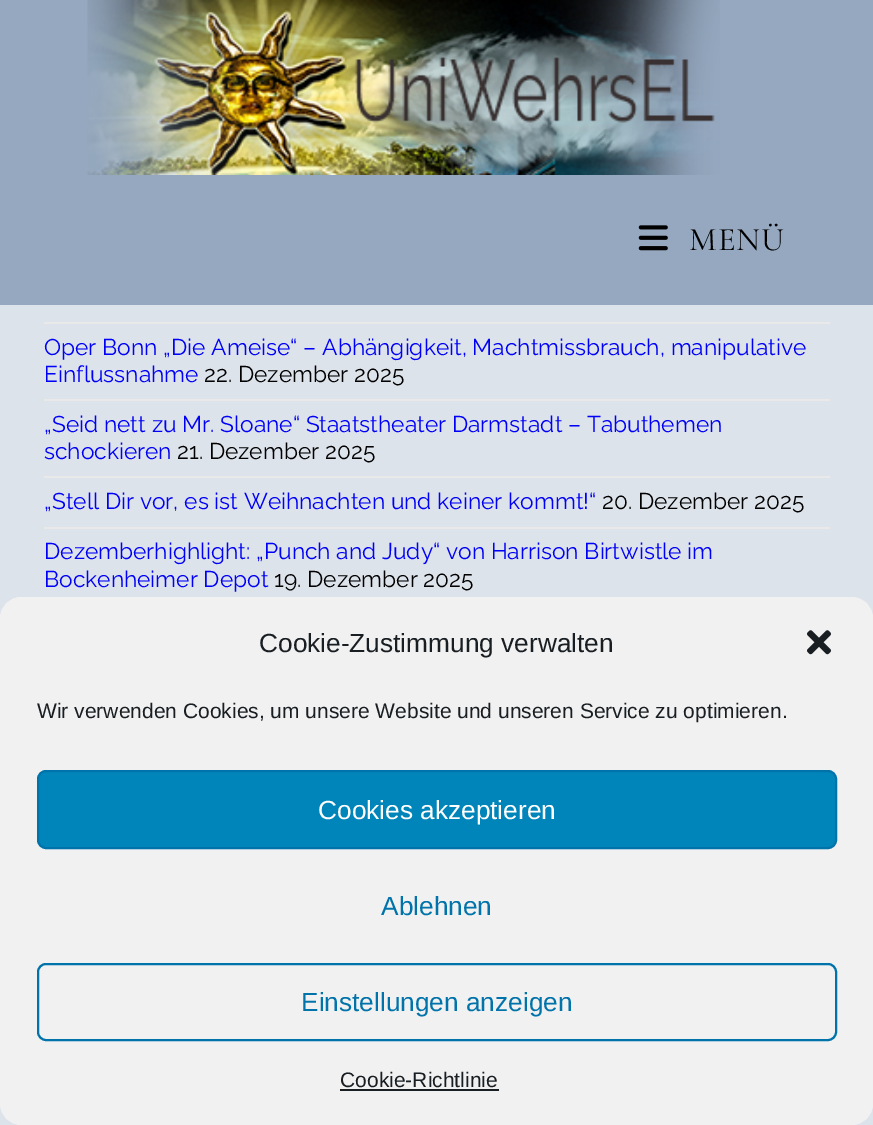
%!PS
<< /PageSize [873 1125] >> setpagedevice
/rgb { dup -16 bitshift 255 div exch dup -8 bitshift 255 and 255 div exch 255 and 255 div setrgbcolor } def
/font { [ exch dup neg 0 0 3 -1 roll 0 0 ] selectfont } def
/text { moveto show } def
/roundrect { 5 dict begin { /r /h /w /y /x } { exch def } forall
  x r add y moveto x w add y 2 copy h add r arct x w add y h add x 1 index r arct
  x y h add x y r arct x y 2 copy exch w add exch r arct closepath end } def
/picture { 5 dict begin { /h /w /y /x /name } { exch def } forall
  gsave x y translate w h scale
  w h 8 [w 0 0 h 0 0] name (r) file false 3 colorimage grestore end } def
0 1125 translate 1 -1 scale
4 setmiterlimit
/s1 { /Raleway-Regular 22.75 font 16#0000F7 rgb } def
/s2 { /Raleway-Regular 22.75 font 16#000000 rgb } def
/s3 { /LiberationSans-Regular 26.25 font 16#191E23 rgb } def
/s4 { /LiberationSans-Regular 21 font 16#191E23 rgb } def
/s5 { /LiberationSans-Regular 26.25 font 16#FFFFFF rgb } def
/s6 { /LiberationSans-Regular 26.25 font 16#0073AA rgb } def
16#DDE3EB rgb
0 0 873 1125 rectfill
16#95A8BF rgb
0 0 873 305 rectfill
(pic1.raw) 87 0 633 175 picture
(pic2.raw) 638 225 30 26 picture
/CormorantGaramond-Regular 33 font
16#000000 rgb
689 250 moveto 1 0 (MENÜ) ashow
16#E9E9E9 rgb
44 322 786 2 rectfill
44 399 786 2 rectfill
s1
(Oper Bonn „Die Ameise“ – Abhängigkeit, Machtmissbrauch, manipulative) 44 355 text
(Einflussnahme) 44 382 text
s2
(22. Dezember 2025) 204 382 text
16#E9E9E9 rgb
44 476 786 2 rectfill
s1
(„Seid nett zu Mr. Sloane“ Staatstheater Darmstadt – Tabuthemen) 44 432 text
(schockieren) 44 459 text
s2
(21. Dezember 2025) 177 459 text
16#E9E9E9 rgb
44 527 786 2 rectfill
s1
(„Stell Dir vor, es ist Weihnachten und keiner kommt!“) 44 509 text
s2
(20. Dezember 2025) 602 509 text
s1
(Dezemberhighlight: „Punch and Judy“ von Harrison Birtwistle im) 44 559 text
(Bockenheimer Depot) 44 587 text
s2
(19. Dezember 2025) 274 587 text
16#F1F1F1 rgb
1 598 871 526 20 roundrect gsave fill grestore
2 setlinewidth
stroke
s3
(Cookie-Zustimmung verwalten) 259 652 text
(pic3.raw) 807 630 24 25 picture
s4
(Wir verwenden Cookies, um unsere Website und unseren Service zu optimieren.) 37 718 text
16#0085BA rgb
38 771 798 77 8 roundrect gsave fill grestore
16#0073AA rgb
stroke
s5
(Cookies akzeptieren) 318 819 text
s6
(Ablehnen) 381 915 text
38 964 798 76 8 roundrect stroke
(Einstellungen anzeigen) 301 1011 text
s4
(Cookie-Richtlinie) 340 1087 text
340 1089 159 2 rectfill
showpage
